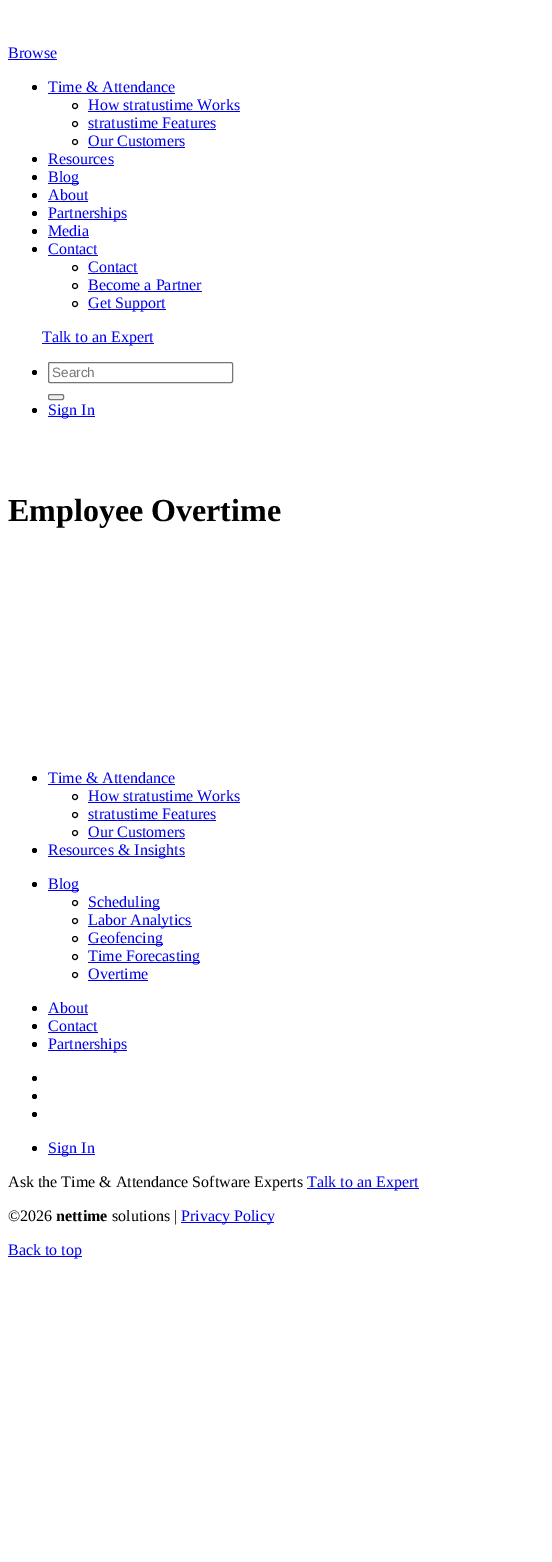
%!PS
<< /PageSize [552 1562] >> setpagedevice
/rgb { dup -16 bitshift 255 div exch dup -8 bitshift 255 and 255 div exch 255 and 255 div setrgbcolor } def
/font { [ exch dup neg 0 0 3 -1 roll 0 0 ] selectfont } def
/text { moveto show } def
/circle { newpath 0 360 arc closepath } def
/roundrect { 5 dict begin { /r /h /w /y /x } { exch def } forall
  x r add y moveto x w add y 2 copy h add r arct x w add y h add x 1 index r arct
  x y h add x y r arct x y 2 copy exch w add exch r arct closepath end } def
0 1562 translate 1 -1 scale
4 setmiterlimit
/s1 { /LiberationSerif-Regular 16 font 16#0000EE rgb } def
/s2 { /LiberationSans-Regular 13.5 font 16#757575 rgb } def
/s3 { /LiberationSerif-Bold 32 font 16#000000 rgb } def
/s4 { /LiberationSerif-Regular 16 font 16#000000 rgb } def
/s5 { /LiberationSerif-Bold 16 font 16#000000 rgb } def
16#FFFFFF rgb
0 0 552 1562 rectfill
s1
(Browse) 8 58 text
8 59 49 1 rectfill
16#000000 rgb
34.5 87.5 2.5 circle fill
s1
(Time & Attendance) 48 92 text
48 93 127 1 rectfill
16#000000 rgb
75 106 2.5 circle stroke
s1
(How stratustime Works) 88 110 text
88 111 152 1 rectfill
16#000000 rgb
75 124 2.5 circle stroke
s1
(stratustime Features) 88 128 text
88 129 128 1 rectfill
16#000000 rgb
75 142 2.5 circle stroke
s1
(Our Customers) 88 146 text
88 147 97 1 rectfill
16#000000 rgb
34.5 159.5 2.5 circle fill
s1
(Resources) 48 164 text
48 165 66 1 rectfill
16#000000 rgb
34.5 177.5 2.5 circle fill
16#0000EE rgb
48 183 31 1 rectfill
(Blog) 48 182 text
16#000000 rgb
34.5 195.5 2.5 circle fill
s1
(About) 48 200 text
48 201 40 1 rectfill
16#000000 rgb
34.5 213.5 2.5 circle fill
16#0000EE rgb
48 219 79 1 rectfill
(Partnerships) 48 218 text
16#000000 rgb
34.5 231.5 2.5 circle fill
s1
(Media) 48 236 text
48 237 41 1 rectfill
16#000000 rgb
34.5 249.5 2.5 circle fill
s1
(Contact) 48 254 text
48 255 50 1 rectfill
16#000000 rgb
75 268 2.5 circle stroke
s1
(Contact) 88 272 text
88 273 50 1 rectfill
16#000000 rgb
75 286 2.5 circle stroke
s1
(Become a Partner) 88 290 text
88 291 114 1 rectfill
16#000000 rgb
75 304 2.5 circle stroke
16#0000EE rgb
88 309 78 1 rectfill
(Get Support) 88 308 text
42 343 112 1 rectfill
(Talk to an Expert) 42 342 text
16#000000 rgb
34.5 372.5 2.5 circle fill
16#767676 rgb
48.5 362.5 184 20 1.5 roundrect stroke
s2
(Search) 52 377 text
16#EFEFEF rgb
48.5 394.5 15 5 1.5 roundrect gsave fill grestore
16#767676 rgb
stroke
16#000000 rgb
34.5 410.5 2.5 circle fill
16#0000EE rgb
48 416 47 1 rectfill
s1
(Sign In) 48 415 text
s3
(Employee Overtime) 8 521 text
34.5 778.5 2.5 circle fill
s1
(Time & Attendance) 48 783 text
48 784 127 1 rectfill
16#000000 rgb
75 797 2.5 circle stroke
s1
(How stratustime Works) 88 801 text
88 802 152 1 rectfill
16#000000 rgb
75 815 2.5 circle stroke
s1
(stratustime Features) 88 819 text
88 820 128 1 rectfill
16#000000 rgb
75 833 2.5 circle stroke
s1
(Our Customers) 88 837 text
88 838 97 1 rectfill
16#000000 rgb
34.5 850.5 2.5 circle fill
16#0000EE rgb
48 856 137 1 rectfill
(Resources & Insights) 48 855 text
16#000000 rgb
34.5 884.5 2.5 circle fill
16#0000EE rgb
48 890 31 1 rectfill
(Blog) 48 889 text
16#000000 rgb
75 903 2.5 circle stroke
16#0000EE rgb
88 908 72 1 rectfill
(Scheduling) 88 907 text
16#000000 rgb
75 921 2.5 circle stroke
16#0000EE rgb
88 926 104 1 rectfill
(Labor Analytics) 88 925 text
16#000000 rgb
75 939 2.5 circle stroke
16#0000EE rgb
88 944 75 1 rectfill
(Geofencing) 88 943 text
16#000000 rgb
75 957 2.5 circle stroke
16#0000EE rgb
88 962 112 1 rectfill
(Time Forecasting) 88 961 text
16#000000 rgb
75 975 2.5 circle stroke
s1
(Overtime) 88 979 text
88 980 60 1 rectfill
16#000000 rgb
34.5 1008.5 2.5 circle fill
s1
(About) 48 1013 text
48 1014 40 1 rectfill
16#000000 rgb
34.5 1026.5 2.5 circle fill
s1
(Contact) 48 1031 text
48 1032 50 1 rectfill
16#000000 rgb
34.5 1044.5 2.5 circle fill
16#0000EE rgb
48 1050 79 1 rectfill
(Partnerships) 48 1049 text
16#000000 rgb
34.5 1078.5 2.5 circle fill
34.5 1096.5 2.5 circle fill
34.5 1114.5 2.5 circle fill
34.5 1148.5 2.5 circle fill
16#0000EE rgb
48 1154 47 1 rectfill
(Sign In) 48 1153 text
s4
(Ask the Time & Attendance Software Experts) 8 1187 text
16#0000EE rgb
307 1188 112 1 rectfill
(Talk to an Expert) 307 1187 text
s4
(©2026) 8 1221 text
s5
(nettime) 56 1221 text
s4
(solutions |) 112 1221 text
16#0000EE rgb
181 1222 93 1 rectfill
(Privacy Policy) 181 1221 text
8 1256 74 1 rectfill
(Back to top) 8 1255 text
showpage
